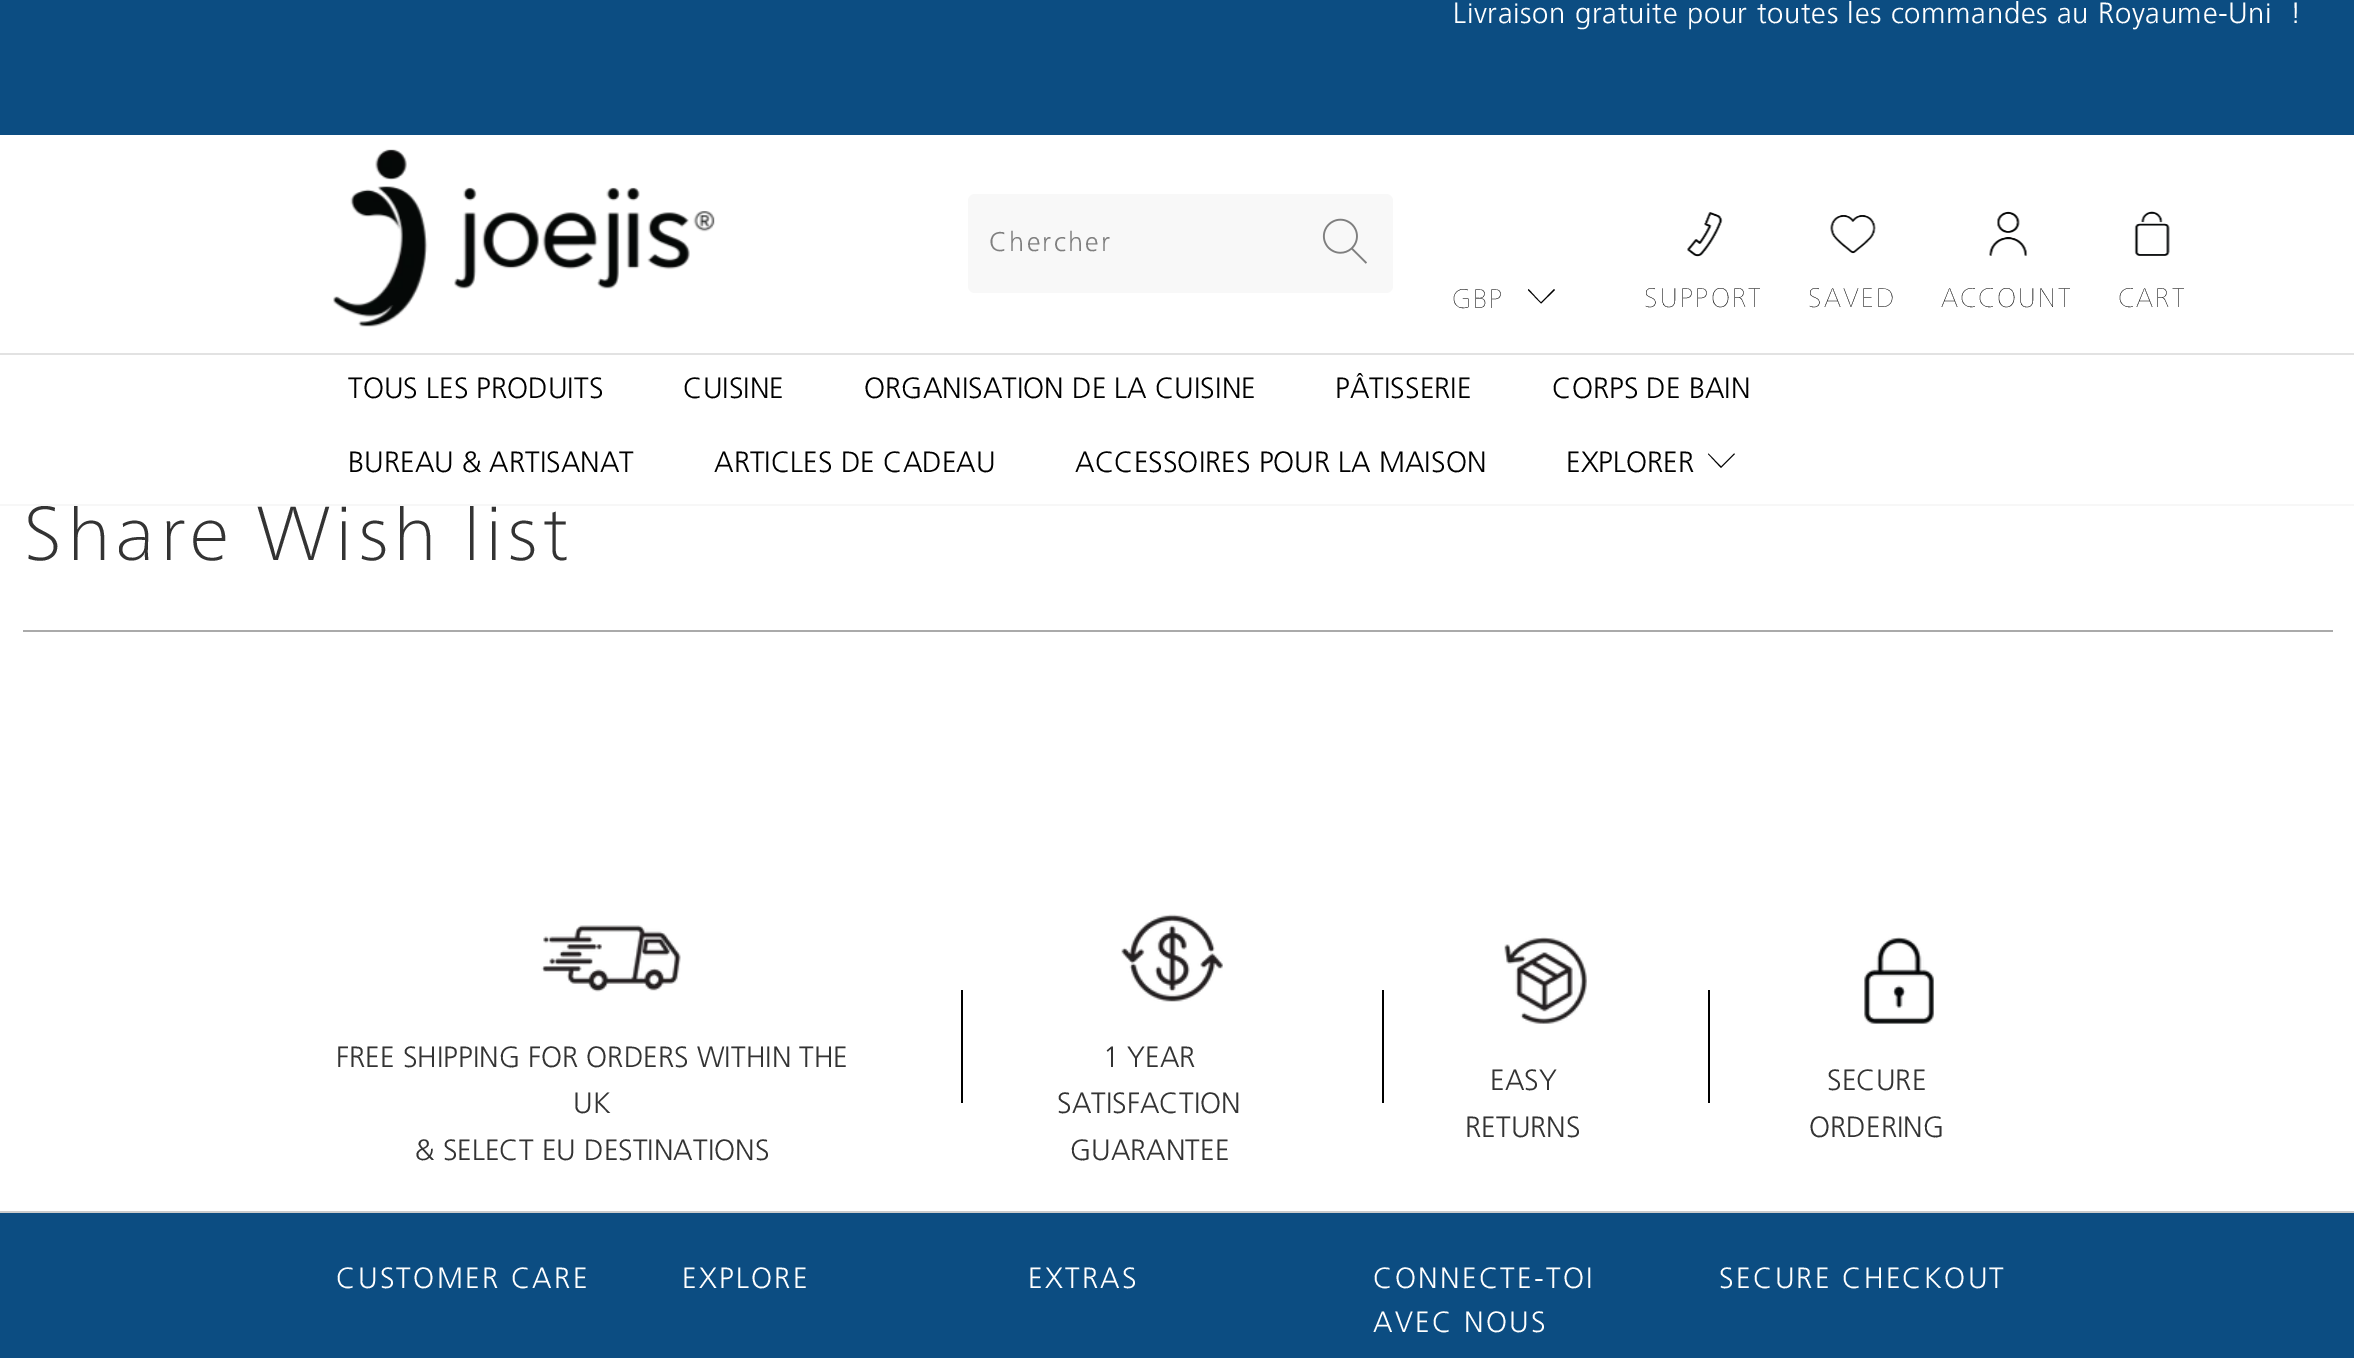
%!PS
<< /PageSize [2354 1358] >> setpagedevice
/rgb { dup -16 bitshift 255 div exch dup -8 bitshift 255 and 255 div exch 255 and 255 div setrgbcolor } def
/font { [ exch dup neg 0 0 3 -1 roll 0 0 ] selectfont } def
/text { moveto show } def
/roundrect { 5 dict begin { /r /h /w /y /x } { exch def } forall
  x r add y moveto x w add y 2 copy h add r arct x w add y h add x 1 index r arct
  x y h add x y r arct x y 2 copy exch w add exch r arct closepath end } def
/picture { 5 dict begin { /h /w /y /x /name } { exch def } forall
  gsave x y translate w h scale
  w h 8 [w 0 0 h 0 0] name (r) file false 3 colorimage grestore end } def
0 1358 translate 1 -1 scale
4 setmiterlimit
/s1 { /Frutiger-Light 29.25 font 16#000000 rgb } def
/s2 { /Frutiger-Light 29.25 font 16#333333 rgb } def
16#FFFFFF rgb
0 0 2354 1358 rectfill
/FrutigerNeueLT-Light 76.5 font
16#333333 rgb
23 560 moveto 4.5 0 (Share Wish list) ashow
16#FFFFFF rgb
73 502 401 2 rectfill
16#0C4D82 rgb
0 0 2354 135 rectfill
/Frutiger-Light 29.25 font
16#FFFFFF rgb
1453 23 moveto 0.67 0 (Livraison gratuite pour toutes les commandes au Royaume-Uni) ashow
2290 23 moveto 0.67 0 (!) ashow
(pic1.raw) 333 149 382 178 picture
16#F8F8F8 rgb
968 194 425 99 7 roundrect fill
/Frutiger-Light 27 font
16#7F7F7F rgb
989 251 moveto 2.25 0 (Chercher) ashow
(pic2.raw) 1322 218 45 46 picture
/FrutigerNeueLT-ExtraLight 27 font
16#000000 rgb
1452 308 moveto 2.25 0 (GBP) ashow
1541 303.5 moveto 1528 290 lineto 1528.5 289 lineto 1541 302.5 lineto 1554 289 lineto 1555 290 lineto closepath fill
(pic3.raw) 1687 212 36 45 picture
1644 307 moveto 2.25 0 (SUPPORT) ashow
(pic4.raw) 1830 215 46 39 picture
1808 307 moveto 2.25 0 (SAVED) ashow
(pic5.raw) 1989 211 39 45 picture
1941 307 moveto 2.25 0 (ACCOUNT) ashow
(pic6.raw) 2134 211 36 45 picture
2118 307 moveto 2.25 0 (CART) ashow
16#E2E2E2 rgb
0 353 2354 2 rectfill
16#F7F7F7 rgb
0 504 2354 2 rectfill
s1
(TOUS LES PRODUITS) 348 398 text
(CUISINE) 683 398 text
(ORGANISATION DE LA CUISINE) 864 398 text
(PÂTISSERIE) 1335 398 text
(CORPS DE BAIN) 1552 398 text
(BUREAU & ARTISANAT) 348 472 text
(ARTICLES DE CADEAU) 714 472 text
(ACCESSOIRES POUR LA MAISON) 1075 472 text
(EXPLORER) 1566 472 text
1721 468 moveto 1708 454 lineto 1708.5 453.5 lineto 1721 466.5 lineto 1734 453.5 lineto 1735 454 lineto closepath fill
16#AAAAAA rgb
23 630 2310 2 rectfill
(pic7.raw) 541 925 140 67 picture
s2
(FREE SHIPPING FOR ORDERS WITHIN THE) 336 1067 text
(UK) 573 1113 text
(& SELECT EU DESTINATIONS) 415 1160 text
16#000000 rgb
961 990 2 113 rectfill
(pic8.raw) 1121 914 102 88 picture
s2
(1 YEAR) 1103 1067 text
(SATISFACTION) 1057 1113 text
(GUARANTEE) 1070 1160 text
16#000000 rgb
1382 990 2 113 rectfill
(pic9.raw) 1504 937 83 87 picture
s2
(EASY) 1490 1090 text
(RETURNS) 1465 1137 text
16#000000 rgb
1708 990 2 113 rectfill
(pic10.raw) 1864 937 70 87 picture
s2
(SECURE) 1827 1090 text
(ORDERING) 1809 1137 text
16#0C4D82 rgb
0 1213 2354 145 rectfill
16#CCCCCC rgb
0 1211 2354 2 rectfill
16#FFFFFF rgb
336 1288 moveto 2.25 0 (CUSTOMER CARE) ashow
682 1288 moveto 2.25 0 (EXPLORE) ashow
1028 1288 moveto 2.25 0 (EXTRAS) ashow
1373 1288 moveto 2.25 0 (CONNECTE-TOI) ashow
1373 1332 moveto 2.25 0 (AVEC NOUS) ashow
1719 1288 moveto 2.25 0 (SECURE CHECKOUT) ashow
showpage
